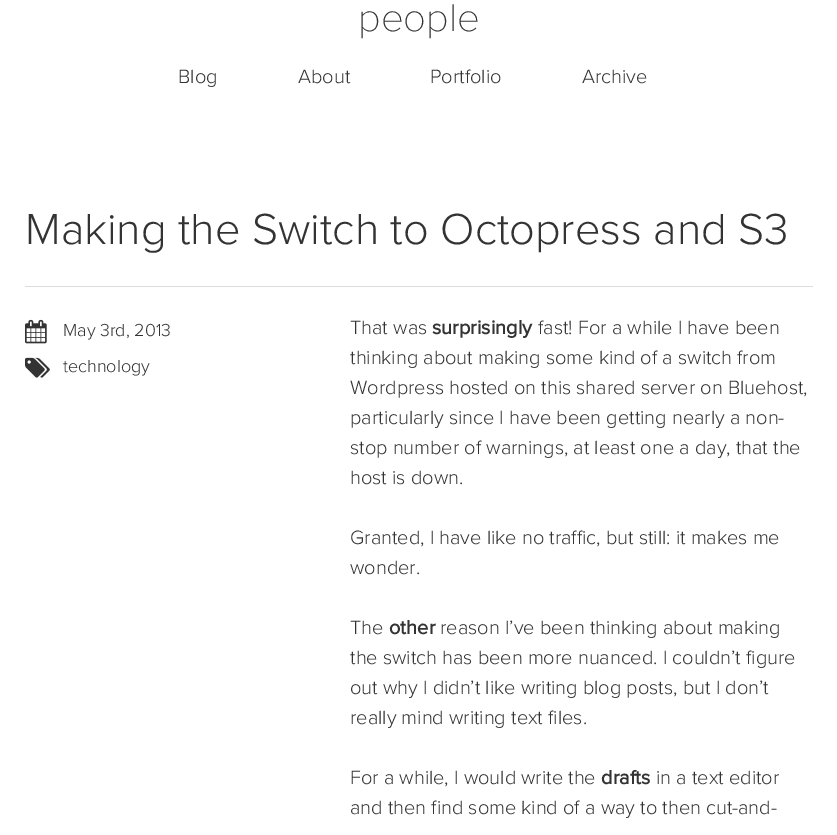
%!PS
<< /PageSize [837 835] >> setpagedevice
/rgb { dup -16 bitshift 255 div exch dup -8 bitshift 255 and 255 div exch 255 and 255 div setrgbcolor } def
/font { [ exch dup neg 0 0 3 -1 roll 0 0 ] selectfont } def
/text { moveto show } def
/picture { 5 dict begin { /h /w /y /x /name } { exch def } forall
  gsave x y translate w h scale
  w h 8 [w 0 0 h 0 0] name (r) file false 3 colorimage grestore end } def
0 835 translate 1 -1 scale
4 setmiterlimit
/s1 { /ProximaNova-Thin 40 font 16#333333 rgb } def
/s2 { /ProximaNova-Light 20 font 16#333333 rgb } def
/s3 { /ProximaNova-Light 45 font 16#333333 rgb } def
/s4 { /ProximaNova-Light 18 font 16#333333 rgb } def
/s5 { /ProximaNova-Bold 20 font 16#333333 rgb } def
16#FFFFFF rgb
0 0 837 835 rectfill
s1
(people) 358 31 text
s2
(Blog) 178 83 text
(About) 298 83 text
(Portfolio) 430 83 text
(Archive) 582 83 text
16#DDDDDD rgb
25 286 788 1 rectfill
s3
(Making the Switch to Octopress and S3) 25 244 text
(pic1.raw) 25 319 22 25 picture
s4
(May 3rd, 2013) 63 336 text
(pic2.raw) 25 357 25 21 picture
(technology) 63 372 text
s2
(That was) 350 334 text
s5
(surprisingly) 432 334 text
s2
(fast! For a while I have been) 538 334 text
(thinking about making some kind of a switch from) 350 364 text
(Wordpress hosted on this shared server on Bluehost,) 350 394 text
(particularly since I have been getting nearly a non-) 350 424 text
(stop number of warnings, at least one a day, that the) 350 454 text
(host is down.) 350 484 text
(Granted, I have like no traffic, but still: it makes me) 350 544 text
(wonder.) 350 574 text
(The) 350 634 text
s5
(other) 389 634 text
s2
(reason I’ve been thinking about making) 440 634 text
(the switch has been more nuanced. I couldn’t figure) 350 664 text
(out why I didn’t like writing blog posts, but I don’t) 350 694 text
(really mind writing text files.) 350 724 text
(For a while, I would write the) 350 784 text
s5
(drafts) 601 784 text
s2
(in a text editor) 656 784 text
(and then find some kind of a way to then cut-and-) 350 814 text
showpage
